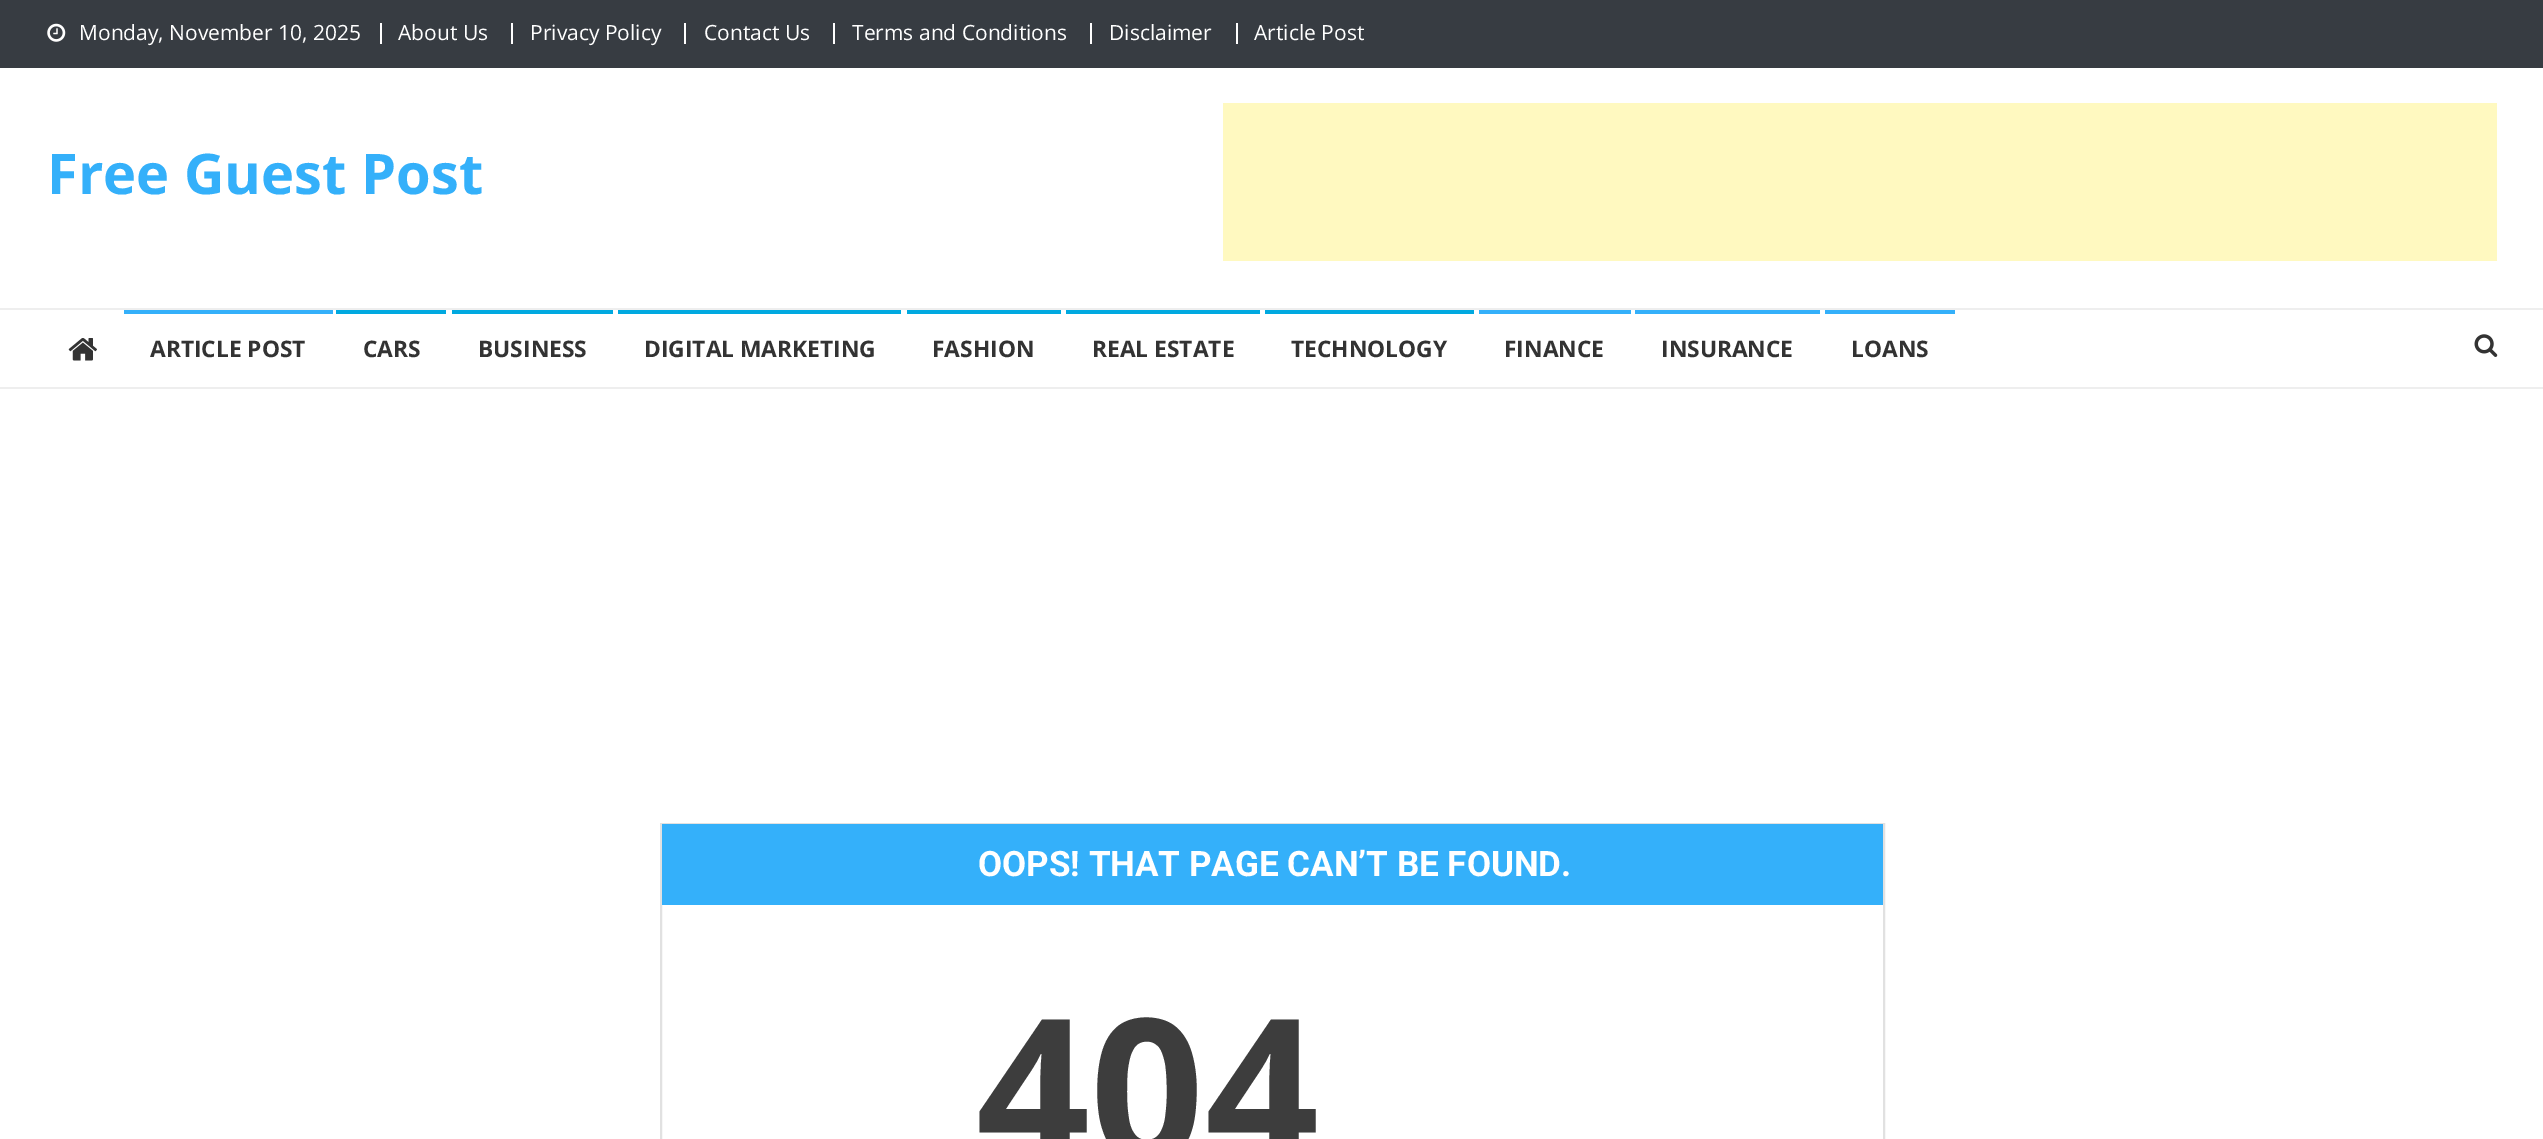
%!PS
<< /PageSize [2543 1139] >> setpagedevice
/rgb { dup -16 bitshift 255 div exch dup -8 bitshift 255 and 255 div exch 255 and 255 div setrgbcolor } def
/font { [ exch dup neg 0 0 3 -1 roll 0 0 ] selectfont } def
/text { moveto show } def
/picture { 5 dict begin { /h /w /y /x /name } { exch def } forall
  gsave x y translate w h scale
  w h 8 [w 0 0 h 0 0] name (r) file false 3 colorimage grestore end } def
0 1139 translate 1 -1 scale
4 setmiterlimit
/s1 { /OpenSans-Regular 21 font 16#FFFFFF rgb } def
/s2 { /OpenSans-Bold 56 font 16#34B0FA rgb } def
/s3 { /OpenSans-Bold 22.75 font 16#333333 rgb } def
/s4 { /Roboto-Bold 35 font 16#FFFFFF rgb } def
/s5 { /OpenSans-Bold 200 font 16#3D3D3D rgb } def
16#FFFFFF rgb
0 0 2543 1139 rectfill
16#373C42 rgb
0 0 2543 68 rectfill
(pic1.raw) 47 23 19 19 picture
s1
(Monday, November 10, 2025) 79 40 text
380 23 2 21 rectfill
(About Us) 398 40 text
511 23 2 21 rectfill
(Privacy Policy) 530 40 text
684 23 2 21 rectfill
(Contact Us) 704 40 text
833 23 2 21 rectfill
(Terms and Conditions) 852 40 text
1090 23 2 21 rectfill
(Disclaimer) 1109 40 text
1236 23 2 21 rectfill
(Article Post) 1254 40 text
s2
(Free Guest Post) 47 194 text
16#FFF9C0 rgb
1223 103 1274 158 rectfill
16#EEEEEE rgb
0 308 2543 2 rectfill
0 387 2543 2 rectfill
(pic2.raw) 68 338 29 23 picture
16#34B0FA rgb
124 310 209 4 rectfill
s3
(ARTICLE POST) 150 357 text
16#00A9E0 rgb
336 310 110 4 rectfill
s3
(CARS) 363 357 text
16#00A9E0 rgb
452 310 161 4 rectfill
s3
(BUSINESS) 478 357 text
16#00A9E0 rgb
618 310 283 4 rectfill
s3
(DIGITAL MARKETING) 644 357 text
16#00A9E0 rgb
907 310 154 4 rectfill
s3
(FASHION) 932 357 text
16#00A9E0 rgb
1066 310 194 4 rectfill
s3
(REAL ESTATE) 1092 357 text
16#00A9E0 rgb
1265 310 209 4 rectfill
s3
(TECHNOLOGY) 1291 357 text
16#34B0FA rgb
1479 310 152 4 rectfill
s3
(FINANCE) 1504 357 text
16#34B0FA rgb
1635 310 185 4 rectfill
s3
(INSURANCE) 1661 357 text
16#34B0FA rgb
1825 310 130 4 rectfill
s3
(LOANS) 1851 357 text
(pic3.raw) 2474 334 24 23 picture
16#E1E1E1 rgb
2 setlinewidth
661 824 1223 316 rectstroke
16#34B0FA rgb
662 824 1221 81 rectfill
s4
(OOPS! THAT PAGE CAN’T BE FOUND.) 978 876 text
s5
(404) 976 1162 text
showpage
